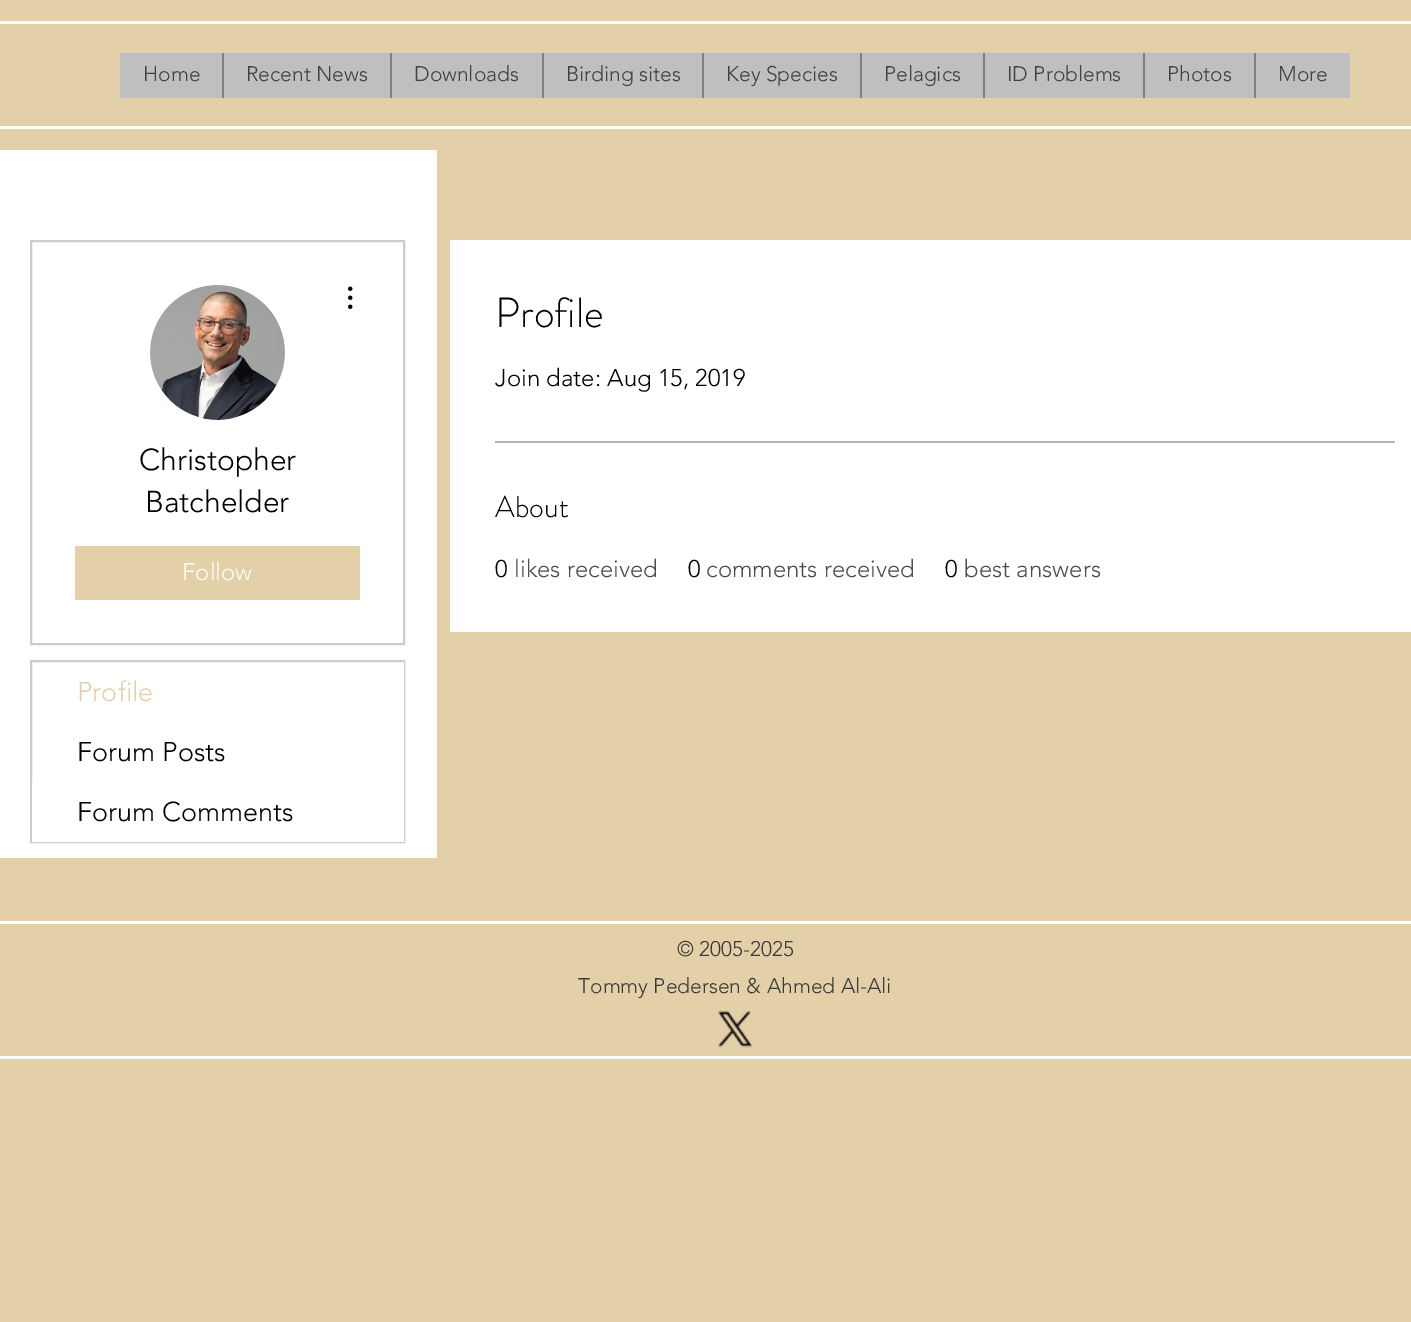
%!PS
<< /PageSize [1411 1322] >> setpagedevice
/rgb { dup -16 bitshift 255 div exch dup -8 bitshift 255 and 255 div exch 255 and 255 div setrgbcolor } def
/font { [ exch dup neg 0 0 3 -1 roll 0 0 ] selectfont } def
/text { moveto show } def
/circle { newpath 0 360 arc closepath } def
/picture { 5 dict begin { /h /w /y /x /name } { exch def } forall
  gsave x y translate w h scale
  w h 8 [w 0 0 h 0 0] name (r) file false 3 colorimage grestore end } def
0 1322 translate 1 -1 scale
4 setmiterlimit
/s1 { /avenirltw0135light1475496-Light 21 font 16#404040 rgb } def
/s2 { /avenirltw0135light1475496-Light 30 font 16#000000 rgb } def
/s3 { /avenirltw0135light1475496-Light 24 font 16#FFFFFF rgb } def
/s4 { /avenirltw0135light1475496-Light 27 font 16#E3D0A8 rgb } def
/s5 { /avenirltw0135light1475496-Light 27 font 16#000000 rgb } def
/s6 { /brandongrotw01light-Light 42 font 16#000000 rgb } def
/s7 { /avenirltw0135light1475496-Light 24 font 16#000000 rgb } def
/s8 { /brandongrotw01light-Light 30 font 16#000000 rgb } def
/s9 { /avenirltw0135light1475496-Light 24 font 16#4D4D4D rgb } def
/s10 { /avenirltw0135light1475496-Light 21 font 16#393939 rgb } def
16#E3D0A8 rgb
0 0 1411 1322 rectfill
16#FFFFFF rgb
0 21 1411 3 rectfill
0 126 1411 3 rectfill
16#BFBFBF rgb
120 53 1230 45 rectfill
s1
(Home) 143 81 text
16#808080 rgb
222 53 2 45 rectfill
s1
(Recent News) 246 81 text
16#808080 rgb
390 53 2 45 rectfill
s1
(Downloads) 414 81 text
16#808080 rgb
542 53 2 45 rectfill
s1
(Birding sites) 566 81 text
16#808080 rgb
702 53 2 45 rectfill
s1
(Key Species) 726 81 text
16#808080 rgb
860 53 2 45 rectfill
s1
(Pelagics) 884 81 text
16#808080 rgb
983 53 2 45 rectfill
s1
(ID Problems) 1007 81 text
16#808080 rgb
1143 53 2 45 rectfill
s1
(Photos) 1167 81 text
16#808080 rgb
1254 53 2 45 rectfill
s1
(More) 1278 81 text
16#FFFFFF rgb
0 150 437 708 rectfill
16#CCCCCC rgb
2 setlinewidth
31 241 373 403 rectstroke
16#D8D8D8 rgb
217.5 352.5 67.5 circle fill
(pic1.raw) 150 285 135 135 picture
(pic2.raw) 348 286 5 23 picture
s2
(Christopher) 139 470 text
(Batchelder) 145 512 text
16#E3D0A8 rgb
75 546 285 54 rectfill
s3
(Follow) 182 580 text
16#CCCCCC rgb
31 661 373 181 rectstroke
16#FFFFFF rgb
403 662 1 120 rectfill
s4
(Profile) 77 701 text
s5
(Forum Posts) 77 761 text
16#FFFFFF rgb
32 782 372 60 rectfill
s5
(Forum Comments) 77 821 text
16#FFFFFF rgb
450 240 961 392 rectfill
s6
(Profile) 495 327 text
s7
(Join date: Aug 15, 2019) 495 386 text
16#B3B3B3 rgb
495 441 900 2 rectfill
s8
(About) 495 517 text
s7
(0) 495 577 text
s9
(likes received) 514 577 text
s7
(0) 688 577 text
s9
(comments received) 706 577 text
s7
(0) 945 577 text
s9
(best answers) 964 577 text
16#FFFFFF rgb
0 921 1411 3 rectfill
0 1056 1411 3 rectfill
s10
(© 2005-2025) 677 956 text
(Tommy Pedersen & Ahmed Al-Ali) 578 993 text
(pic3.raw) 718 1010 34 38 picture
showpage
